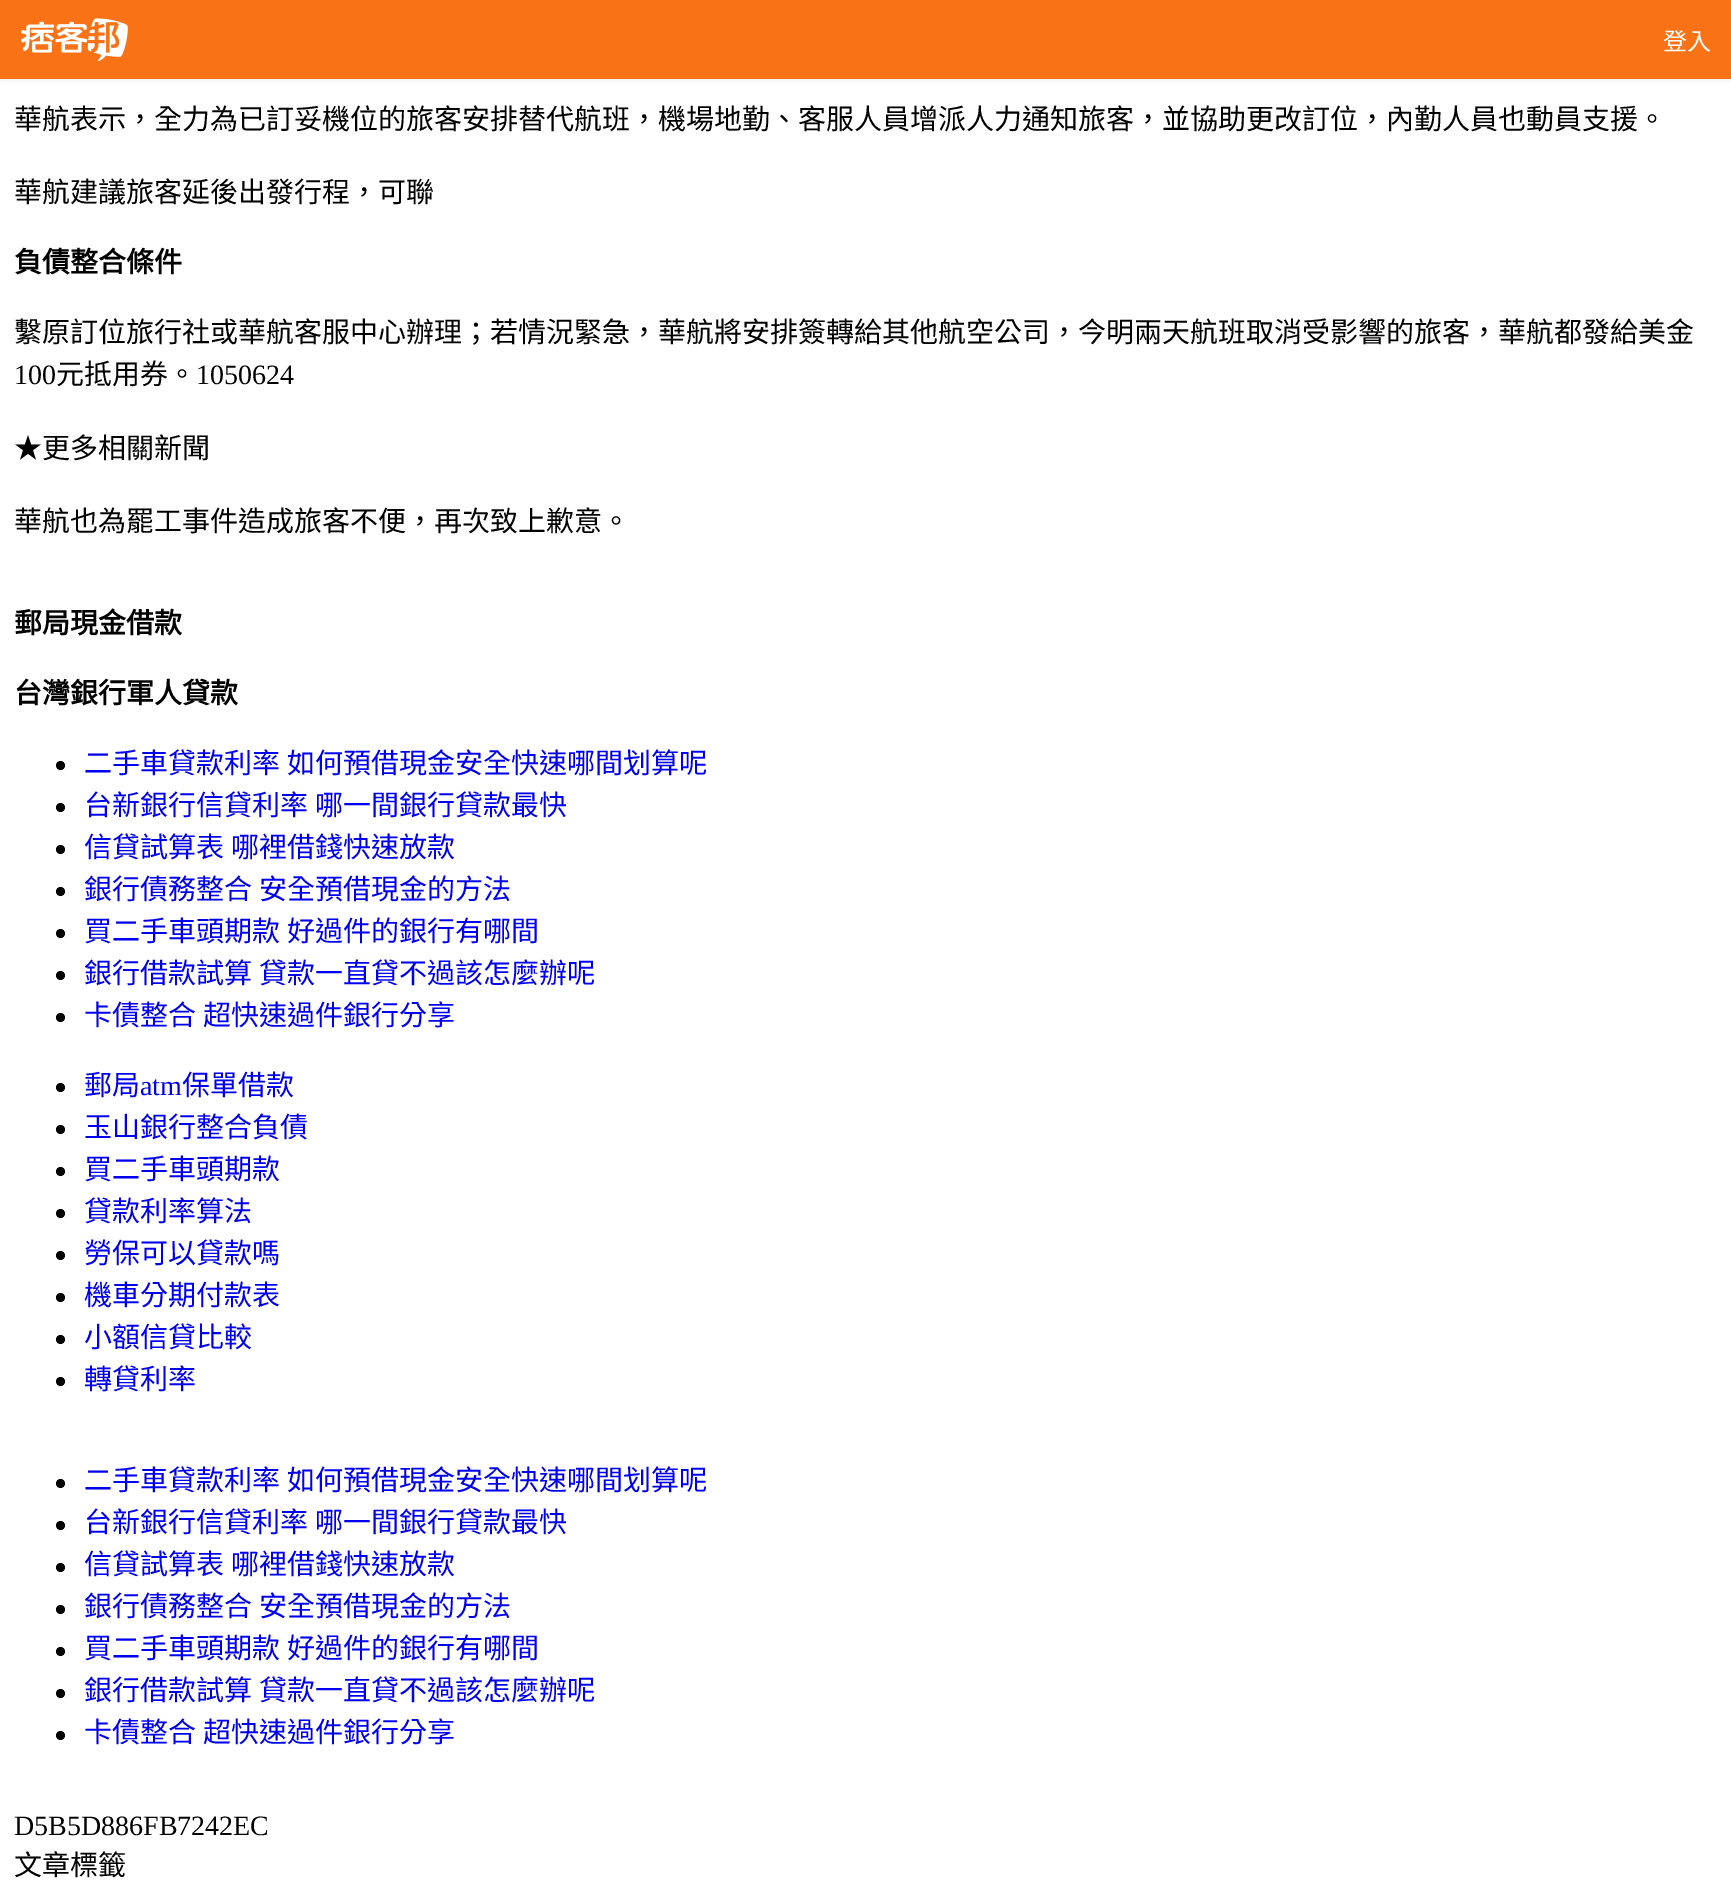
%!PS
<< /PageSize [1731 1884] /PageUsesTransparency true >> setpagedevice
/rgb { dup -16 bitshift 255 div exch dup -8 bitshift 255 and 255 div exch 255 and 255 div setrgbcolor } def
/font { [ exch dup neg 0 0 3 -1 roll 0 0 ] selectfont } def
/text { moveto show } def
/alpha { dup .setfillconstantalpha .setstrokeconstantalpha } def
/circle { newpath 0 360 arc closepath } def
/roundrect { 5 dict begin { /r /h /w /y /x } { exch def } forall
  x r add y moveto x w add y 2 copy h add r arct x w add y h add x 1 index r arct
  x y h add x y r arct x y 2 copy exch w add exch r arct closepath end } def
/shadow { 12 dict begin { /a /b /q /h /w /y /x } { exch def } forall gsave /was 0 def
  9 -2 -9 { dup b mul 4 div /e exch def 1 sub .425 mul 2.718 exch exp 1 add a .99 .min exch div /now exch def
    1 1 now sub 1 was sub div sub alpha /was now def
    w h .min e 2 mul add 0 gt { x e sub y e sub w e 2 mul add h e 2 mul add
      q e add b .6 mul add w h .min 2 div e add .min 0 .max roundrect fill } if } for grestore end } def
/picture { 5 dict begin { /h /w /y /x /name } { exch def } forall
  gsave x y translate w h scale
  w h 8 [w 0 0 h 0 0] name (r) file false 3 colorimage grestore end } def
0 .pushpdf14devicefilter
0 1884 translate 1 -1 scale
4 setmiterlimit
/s1 { /NotoSansCJKTC-Regular 24 font 16#FFFFFF rgb } def
/s2 { /NotoSansCJKTC-Regular 28 font 16#000000 rgb } def
/s3 { /NotoSansCJKTC-Bold 28 font 16#000000 rgb } def
/s4 { /LiberationSerif-Regular 28 font 16#000000 rgb } def
/s5 { /NotoSansCJKTC-Regular 28 font 16#0000EE rgb } def
/s6 { /LiberationSerif-Regular 28 font 16#0000EE rgb } def
16#FFFFFF rgb
0 0 1731 1884 rectfill
16#000000 rgb
0 2 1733 79 0 2 0.05 shadow
16#F97316 rgb
0 0 1731 79 rectfill
(pic1.raw) 21 18 107 43 picture
s1
(登入) 1663 50 text
s2
(華航表示，全力為已訂妥機位的旅客安排替代航班，機場地勤、客服人員增派人力通知旅客，並協助更改訂位，內勤人員也動員支援。) 14 129 text
(華航建議旅客延後出發行程，可聯) 14 202 text
s3
(負債整合條件) 14 272 text
s2
(繫原訂位旅行社或華航客服中心辦理；若情況緊急，華航將安排簽轉給其他航空公司，今明兩天航班取消受影響的旅客，華航都發給美金) 14 342 text
s4
(100) 14 384 text
s2
(元抵用券。) 56 384 text
s4
(1050624) 196 384 text
s2
(★更多相關新聞) 14 458 text
(華航也為罷工事件造成旅客不便，再次致上歉意。) 14 531 text
s3
(郵局現金借款) 14 633 text
(台灣銀行軍人貸款) 14 703 text
60.5 765.5 4.5 circle fill
/NotoSansCJKTC-Regular 28 font
16#0000EE rgb
84 773 moveto 1 0 32 (二手車貸款利率 如何預借現金安全快速哪間划算呢) widthshow
16#000000 rgb
60.5 807.5 4.5 circle fill
16#0000EE rgb
84 815 moveto 1 0 32 (台新銀行信貸利率 哪一間銀行貸款最快) widthshow
16#000000 rgb
60.5 849.5 4.5 circle fill
s5
(信貸試算表) 84 857 text
(哪裡借錢快速放款) 231 857 text
16#000000 rgb
60.5 891.5 4.5 circle fill
16#0000EE rgb
84 899 moveto 1 0 32 (銀行債務整合 安全預借現金的方法) widthshow
16#000000 rgb
60.5 933.5 4.5 circle fill
16#0000EE rgb
84 941 moveto 1 0 32 (買二手車頭期款 好過件的銀行有哪間) widthshow
16#000000 rgb
60.5 975.5 4.5 circle fill
16#0000EE rgb
84 983 moveto 1 0 32 (銀行借款試算 貸款一直貸不過該怎麼辦呢) widthshow
16#000000 rgb
60.5 1017.5 4.5 circle fill
16#0000EE rgb
84 1025 moveto 1 0 32 (卡債整合 超快速過件銀行分享) widthshow
16#000000 rgb
60.5 1087.5 4.5 circle fill
s5
(郵局) 84 1095 text
s6
(atm) 140 1095 text
s5
(保單借款) 182 1095 text
16#000000 rgb
60.5 1129.5 4.5 circle fill
s5
(玉山銀行整合負債) 84 1137 text
16#000000 rgb
60.5 1171.5 4.5 circle fill
s5
(買二手車頭期款) 84 1179 text
16#000000 rgb
60.5 1213.5 4.5 circle fill
s5
(貸款利率算法) 84 1221 text
16#000000 rgb
60.5 1255.5 4.5 circle fill
s5
(勞保可以貸款嗎) 84 1263 text
16#000000 rgb
60.5 1297.5 4.5 circle fill
s5
(機車分期付款表) 84 1305 text
16#000000 rgb
60.5 1339.5 4.5 circle fill
s5
(小額信貸比較) 84 1347 text
16#000000 rgb
60.5 1381.5 4.5 circle fill
s5
(轉貸利率) 84 1389 text
16#000000 rgb
60.5 1483.5 4.5 circle fill
16#0000EE rgb
84 1490 moveto 1 0 32 (二手車貸款利率 如何預借現金安全快速哪間划算呢) widthshow
16#000000 rgb
60.5 1525.5 4.5 circle fill
16#0000EE rgb
84 1532 moveto 1 0 32 (台新銀行信貸利率 哪一間銀行貸款最快) widthshow
16#000000 rgb
60.5 1567.5 4.5 circle fill
s5
(信貸試算表) 84 1574 text
(哪裡借錢快速放款) 231 1574 text
16#000000 rgb
60.5 1609.5 4.5 circle fill
16#0000EE rgb
84 1616 moveto 1 0 32 (銀行債務整合 安全預借現金的方法) widthshow
16#000000 rgb
60.5 1651.5 4.5 circle fill
16#0000EE rgb
84 1658 moveto 1 0 32 (買二手車頭期款 好過件的銀行有哪間) widthshow
16#000000 rgb
60.5 1693.5 4.5 circle fill
16#0000EE rgb
84 1700 moveto 1 0 32 (銀行借款試算 貸款一直貸不過該怎麼辦呢) widthshow
16#000000 rgb
60.5 1735.5 4.5 circle fill
16#0000EE rgb
84 1742 moveto 1 0 32 (卡債整合 超快速過件銀行分享) widthshow
s4
(D5B5D886FB7242EC) 14 1835 text
s2
(文章標籤) 14 1875 text
.poppdf14devicefilter showpage
